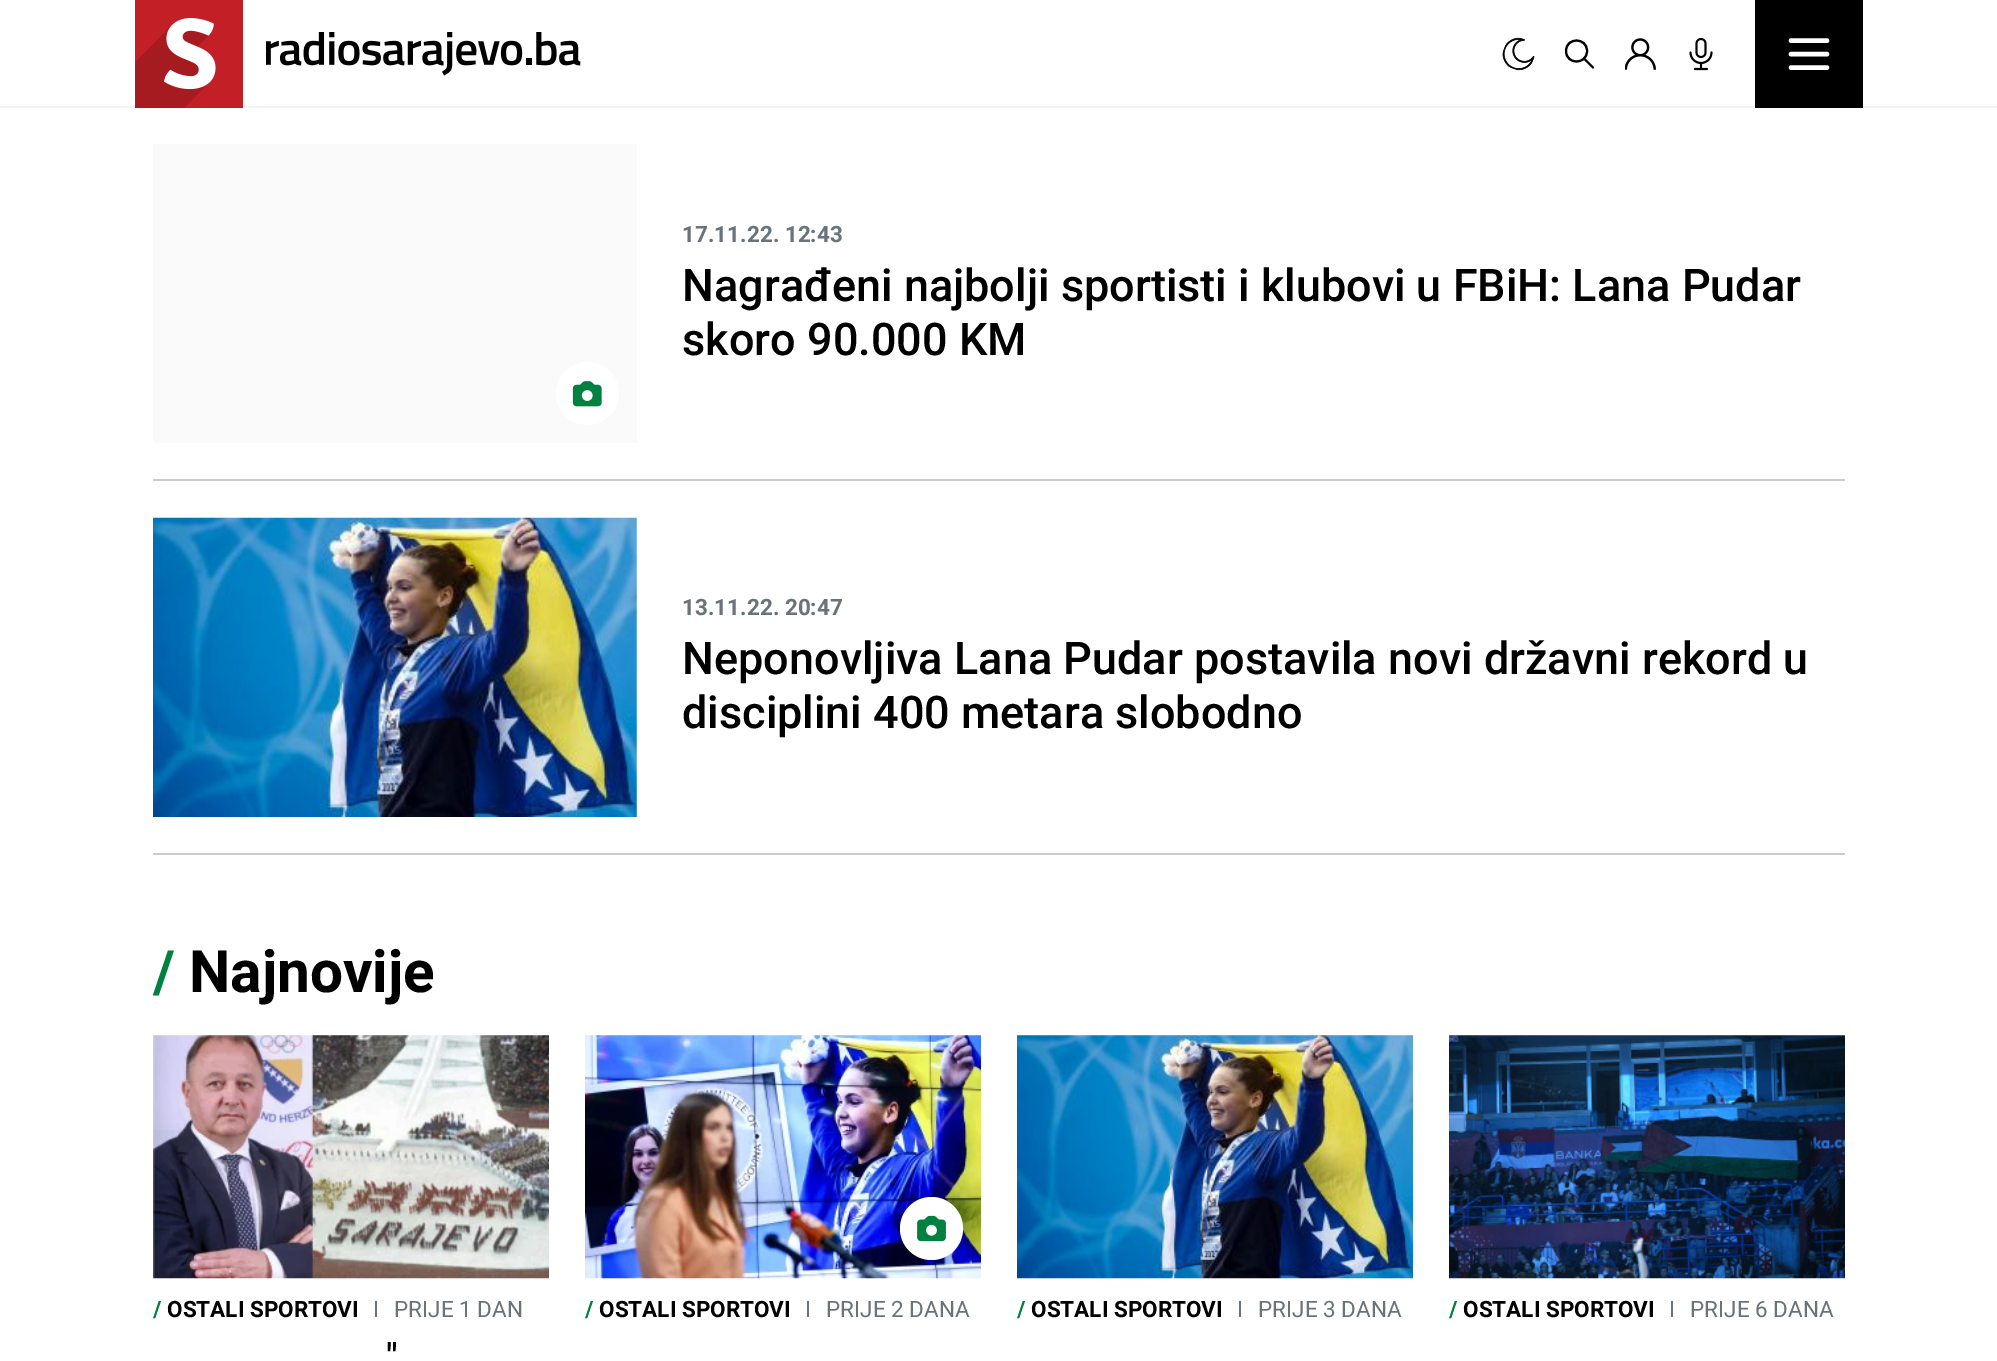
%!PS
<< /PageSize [1997 1361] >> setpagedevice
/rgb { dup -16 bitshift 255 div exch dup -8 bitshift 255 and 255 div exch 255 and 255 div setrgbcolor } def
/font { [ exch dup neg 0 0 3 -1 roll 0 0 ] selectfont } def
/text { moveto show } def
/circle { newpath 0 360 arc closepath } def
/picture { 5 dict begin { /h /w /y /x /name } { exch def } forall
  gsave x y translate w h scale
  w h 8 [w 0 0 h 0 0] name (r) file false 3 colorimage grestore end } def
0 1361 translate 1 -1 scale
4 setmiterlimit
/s1 { /Roboto-Bold 22.5 font 16#69737B rgb } def
/s2 { /Roboto-Medium 45 font 16#000000 rgb } def
/s3 { /Roboto-Bold 58.5 font 16#008140 rgb } def
/s4 { /Roboto-Bold 58.5 font 16#000000 rgb } def
/s5 { /Roboto-Bold 22.5 font 16#008140 rgb } def
/s6 { /Roboto-Bold 22.5 font 16#000000 rgb } def
/s7 { /Roboto-Regular 22.5 font 16#69737B rgb } def
/s8 { /Roboto-Medium 36 font 16#000000 rgb } def
16#FFFFFF rgb
0 0 1997 1361 rectfill
16#F3F3F5 rgb
0 106 1997 2 rectfill
16#C22026 rgb
135 0 108 108 rectfill
(pic1.raw) 135 18 81 90 picture
(pic2.raw) 266 32 315 44 picture
(pic3.raw) 1502 37 33 34 picture
16#000000 rgb
2.1 setlinewidth
1 setlinecap
1 setlinejoin
1593 67.5 moveto 1584 58.5 lineto 1587 51 moveto 1587 65 1566 65 1566 51 curveto 1566 37 1587 37 1587 51 curveto closepath stroke
(pic4.raw) 1625 38 31 32 picture
(pic5.raw) 1689 37 24 34 picture
1755 0 108 108 rectfill
16#FFFFFF rgb
4.5 setlinewidth
1791 40.5 moveto 1827 40.5 lineto 1791 54 moveto 1827 54 lineto 1791 67.5 moveto 1827 67.5 lineto stroke
16#CCCCCC rgb
153 479 1692 2 rectfill
16#FAFAFA rgb
153 144 484 299 rectfill
16#FFFFFF rgb
587.5 393.5 31.5 circle fill
(pic6.raw) 572 381 30 26 picture
s1
(17.11.22. 12:43) 682 242 text
s2
(Nagrađeni najbolji sportisti i klubovi u FBiH: Lana Pudar) 682 301 text
(skoro 90.000 KM) 682 355 text
16#CCCCCC rgb
153 853 1692 2 rectfill
(pic7.raw) 153 517 484 300 picture
s1
(13.11.22. 20:47) 682 615 text
s2
(Neponovljiva Lana Pudar postavila novi državni rekord u) 682 674 text
(disciplini 400 metara slobodno) 682 728 text
s3
(/) 153 992 text
s4
(Najnovije) 189 992 text
(pic8.raw) 153 1035 396 244 picture
s5
(/) 153 1317 text
s6
(OSTALI SPORTOVI) 167 1317 text
s7
(I) 373 1317 text
(PRIJE 1 DAN) 394 1317 text
s8
(") 386 1369 text
(pic9.raw) 585 1035 396 244 picture
16#FFFFFF rgb
931.5 1228.5 31.5 circle fill
(pic10.raw) 917 1215 29 27 picture
s5
(/) 585 1317 text
s6
(OSTALI SPORTOVI) 599 1317 text
s7
(I) 805 1317 text
(PRIJE 2 DANA) 826 1317 text
(pic11.raw) 1017 1035 396 244 picture
s5
(/) 1017 1317 text
s6
(OSTALI SPORTOVI) 1031 1317 text
s7
(I) 1237 1317 text
(PRIJE 3 DANA) 1258 1317 text
(pic12.raw) 1449 1035 396 244 picture
s5
(/) 1449 1317 text
s6
(OSTALI SPORTOVI) 1463 1317 text
s7
(I) 1669 1317 text
(PRIJE 6 DANA) 1690 1317 text
showpage
